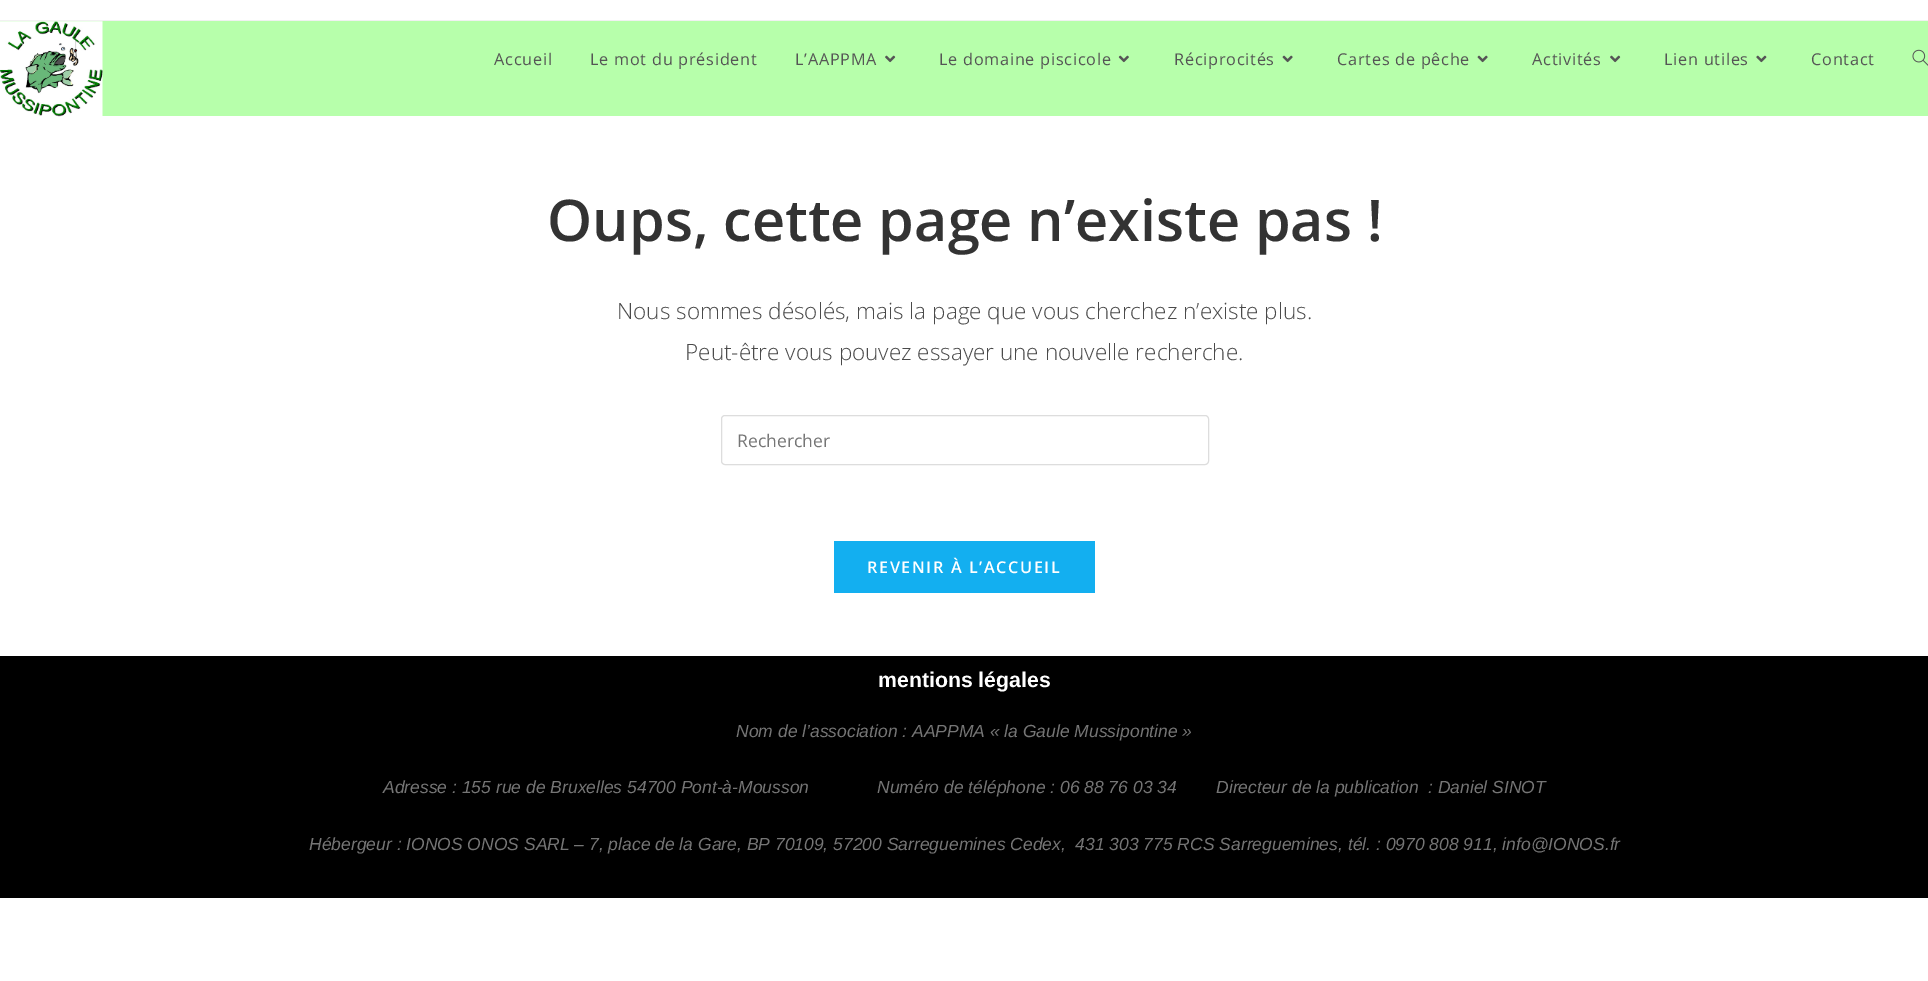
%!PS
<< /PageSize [1928 981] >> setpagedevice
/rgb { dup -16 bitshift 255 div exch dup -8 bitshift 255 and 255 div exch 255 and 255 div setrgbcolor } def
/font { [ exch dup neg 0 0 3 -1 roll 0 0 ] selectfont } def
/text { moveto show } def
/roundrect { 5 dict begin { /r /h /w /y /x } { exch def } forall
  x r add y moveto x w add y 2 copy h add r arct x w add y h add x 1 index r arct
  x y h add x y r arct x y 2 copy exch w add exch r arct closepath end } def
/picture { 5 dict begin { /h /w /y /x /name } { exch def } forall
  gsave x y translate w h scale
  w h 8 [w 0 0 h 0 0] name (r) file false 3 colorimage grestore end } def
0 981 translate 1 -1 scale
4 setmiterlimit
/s1 { /OpenSans-SemiBold 57.5 font 16#333333 rgb } def
/s2 { /OpenSans-Light 22.5 font 16#4A4A4A rgb } def
/s3 { /OpenSans-Regular 17.5 font 16#757575 rgb } def
/s4 { /LiberationSans-Bold 21.25 font 16#FFFFFF rgb } def
/s5 { /LiberationSans-Italic 17.5 font 16#757575 rgb } def
16#FFFFFF rgb
0 0 1928 981 rectfill
16#F1F1F1 rgb
0 20 1928 1 rectfill
16#B7FFAB rgb
0 21 1928 95 rectfill
(pic1.raw) 0 21 103 96 picture
/OpenSans-Regular 16.25 font
16#555555 rgb
494 65 moveto 0.75 0 (Accueil) ashow
590 65 moveto 0.75 0 (Le mot du président) ashow
795 65 moveto 0.75 0 (L’AAPPMA) ashow
(pic2.raw) 885 55 11 8 picture
939 65 moveto 0.75 0 (Le domaine piscicole) ashow
(pic3.raw) 1118 55 11 8 picture
1174 65 moveto 0.75 0 (Réciprocités) ashow
(pic4.raw) 1282 55 11 8 picture
1337 65 moveto 0.75 0 (Cartes de pêche) ashow
(pic4.raw) 1477 55 11 8 picture
1532 65 moveto 0.75 0 (Activités) ashow
(pic2.raw) 1610 55 11 8 picture
1664 65 moveto 0.75 0 (Lien utiles) ashow
(pic5.raw) 1756 55 11 8 picture
1811 65 moveto 0.75 0 (Contact) ashow
(pic6.raw) 1912 49 16 17 picture
s1
(Oups, cette page n’existe pas !) 547 241 text
s2
(Nous sommes désolés, mais la page que vous cherchez n’existe plus.) 617 319 text
(Peut-être vous pouvez essayer une nouvelle recherche.) 685 360 text
16#DDDDDD rgb
721.5 415.5 487 49 3.5 roundrect stroke
s3
(Rechercher) 737 447 text
16#13AFF0 rgb
834 541 261 52 rectfill
/OpenSans-SemiBold 16.25 font
16#FFFFFF rgb
867 573 moveto 1.6 0 (REVENIR À L’ACCUEIL) ashow
16#000000 rgb
0 656 1928 242 rectfill
s4
(mentions légales) 878 687 text
s5
(Nom de l’association : AAPPMA « la Gaule Mussipontine ») 736 737 text
(Adresse : 155 rue de Bruxelles 54700 Pont-à-Mousson) 383 793 text
(Numéro de téléphone : 06 88 76 03 34) 877 793 text
(Directeur de la publication  : Daniel SINOT) 1216 793 text
(Hébergeur : IONOS ONOS SARL – 7, place de la Gare, BP 70109, 57200 Sarreguemines Cedex,  431 303 775 RCS Sarreguemines, tél. : 0970 808 911, info@IONOS.fr) 309 850 text
showpage
